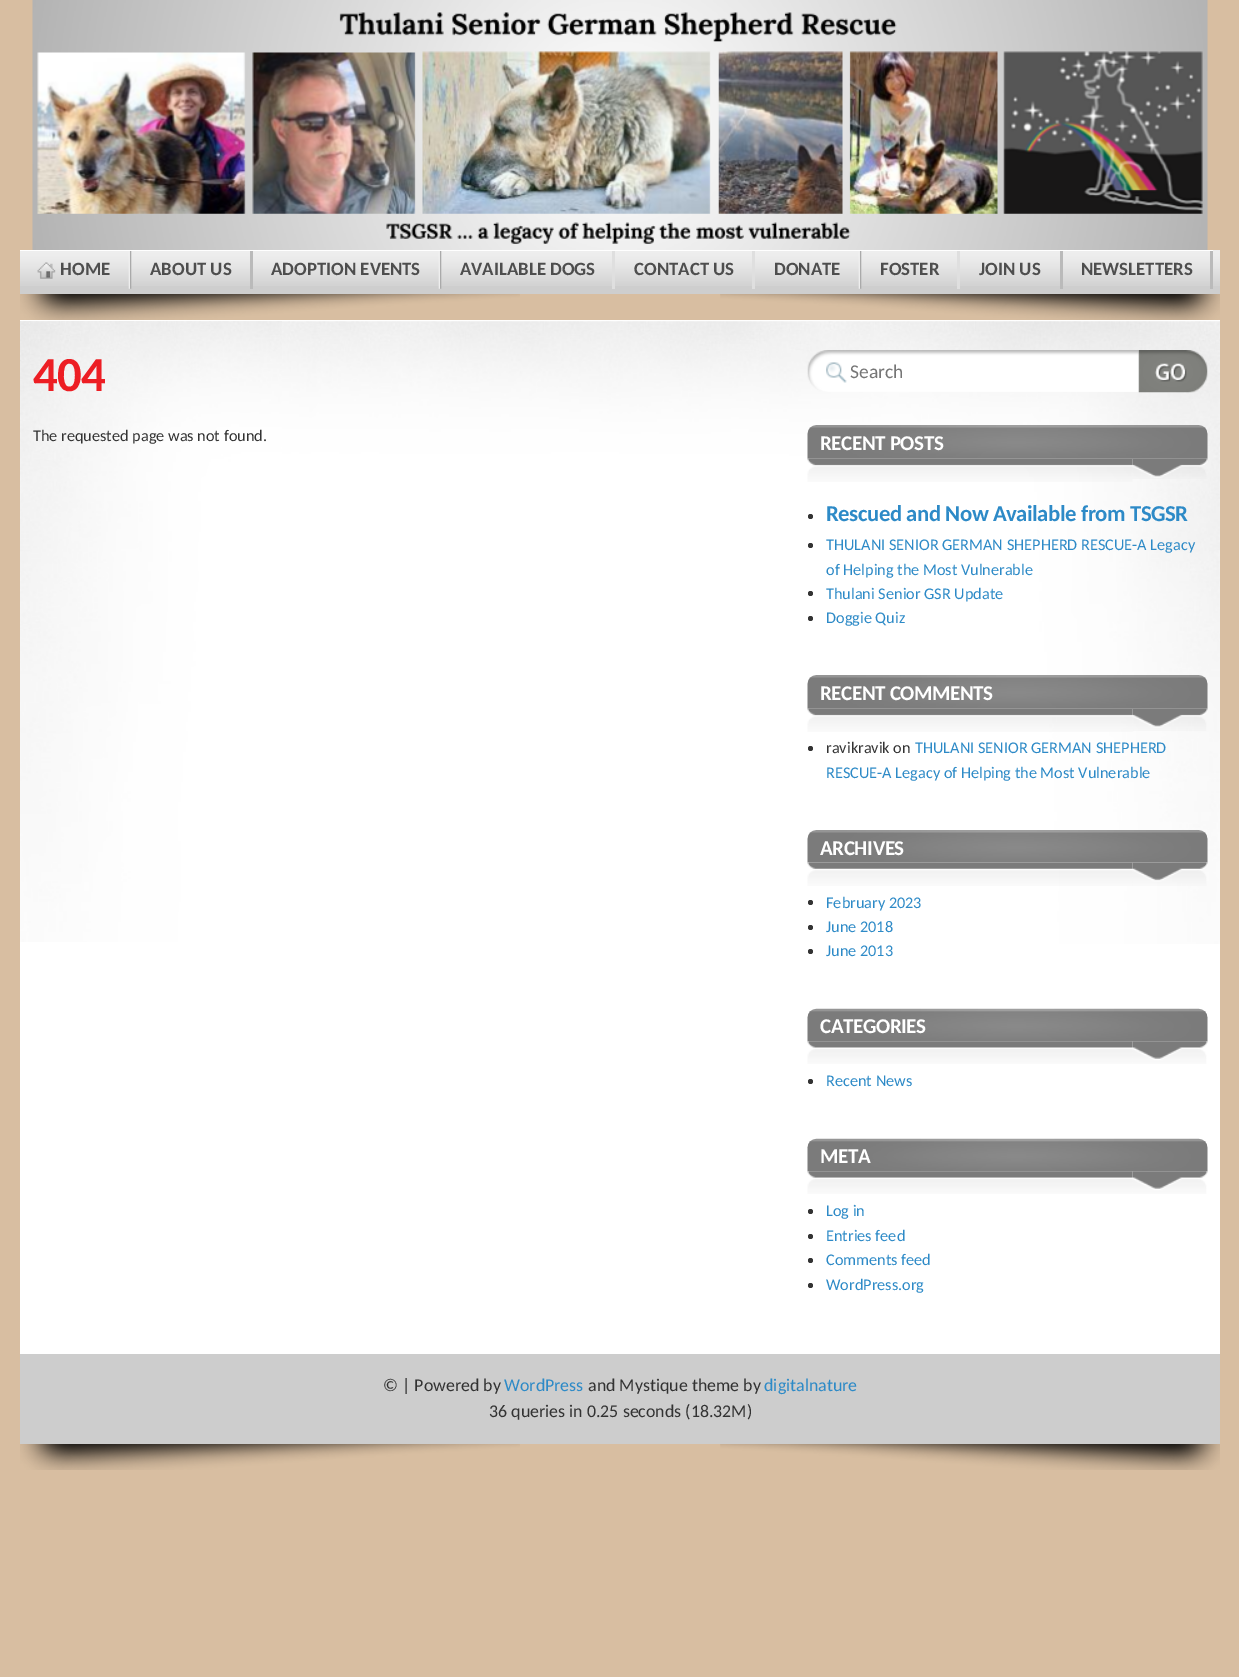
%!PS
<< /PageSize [1239 1677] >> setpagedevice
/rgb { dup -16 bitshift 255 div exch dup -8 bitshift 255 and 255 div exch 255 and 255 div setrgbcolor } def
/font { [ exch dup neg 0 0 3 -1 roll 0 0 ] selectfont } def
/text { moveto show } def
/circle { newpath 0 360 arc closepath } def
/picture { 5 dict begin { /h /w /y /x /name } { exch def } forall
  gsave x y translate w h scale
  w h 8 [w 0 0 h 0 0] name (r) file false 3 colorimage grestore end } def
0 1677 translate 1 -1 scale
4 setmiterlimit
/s1 { /Carlito-Bold 18.75 font 16#4E4E4E rgb } def
/s2 { /Carlito-Regular 16.25 font 16#333333 rgb } def
/s3 { /Carlito-Regular 19.5 font 16#757575 rgb } def
/s4 { /Carlito-Regular 16.25 font 16#2D8AC7 rgb } def
/s5 { /Carlito-Regular 17.9 font 16#333333 rgb } def
/s6 { /Carlito-Regular 17.9 font 16#2D8AC7 rgb } def
16#D8BEA1 rgb
0 0 1239 1677 rectfill
(pic1.raw) 32 0 1176 250 picture
(pic2.raw) 20 294 500 26 picture
(pic3.raw) 720 294 500 26 picture
16#CECECE rgb
20 286 1200 8 rectfill
(pic4.raw) 20 250 1200 36 picture
(pic5.raw) 128 251 4 38 picture
16#FFFFFF rgb
20 250 111 1 rectfill
(pic6.raw) 37 262 19 17 picture
s1
(HOME) 60 275 text
16#BABABA rgb
250 250 3 39 rectfill
16#FFFFFF rgb
131 250 310 1 rectfill
s1
(ABOUT US) 150 275 text
(pic5.raw) 438 251 4 38 picture
(ADOPTION EVENTS) 271 275 text
16#DFDFDF rgb
612 250 3 39 rectfill
16#FFFFFF rgb
441 250 174 1 rectfill
s1
(AVAILABLE DOGS) 460 275 text
16#DFDFDF rgb
752 250 3 39 rectfill
16#FFFFFF rgb
615 250 246 1 rectfill
s1
(CONTACT US) 634 275 text
(pic5.raw) 858 251 4 38 picture
(DONATE) 774 275 text
16#DFDFDF rgb
957 250 3 39 rectfill
16#FFFFFF rgb
861 250 99 1 rectfill
s1
(FOSTER) 880 275 text
16#BABABA rgb
1060 250 3 39 rectfill
16#FFFFFF rgb
960 250 103 1 rectfill
s1
(JOIN US) 979 275 text
16#BABABA rgb
1210 250 3 39 rectfill
16#FFFFFF rgb
1063 250 150 1 rectfill
s1
(NEWSLETTERS) 1081 275 text
16#FFFFFF rgb
20 320 1200 1034 rectfill
(pic7.raw) 20 321 1200 623 picture
(pic8.raw) 20 321 262 621 picture
/Carlito-Bold 49 font
16#ED1E24 rgb
33 391 moveto -1 0 (404) ashow
s2
(The requested page was not found.) 33 441 text
(pic9.raw) 807 350 332 42 picture
s3
(Search) 850 378 text
(pic10.raw) 1138 350 70 43 picture
(pic11.raw) 807 425 401 34 picture
/Carlito-Bold 21 font
16#FFFFFF rgb
820 450 moveto -0.4 0 (RECENT POSTS) ashow
(pic12.raw) 807 458 326 24 picture
(pic13.raw) 1132 458 76 21 picture
16#333333 rgb
810.5 516.5 2.5 circle fill
/Carlito-Bold 22.75 font
16#2D8AC7 rgb
826 521 moveto -0.45 0 (Rescued and Now Available from TSGSR) ashow
16#333333 rgb
810.5 545.5 2.5 circle fill
s4
(THULANI SENIOR GERMAN SHEPHERD RESCUE-A Legacy) 826 550 text
(of Helping the Most Vulnerable) 826 575 text
16#333333 rgb
810.5 593.5 2.5 circle fill
s4
(Thulani Senior GSR Update) 826 599 text
16#333333 rgb
810.5 618.5 2.5 circle fill
s4
(Doggie Quiz) 826 623 text
(pic14.raw) 807 675 401 34 picture
/Carlito-Bold 21 font
16#FFFFFF rgb
820 700 moveto -0.4 0 (RECENT COMMENTS) ashow
(pic15.raw) 807 708 326 24 picture
(pic16.raw) 1132 708 76 23 picture
16#333333 rgb
810.5 748.5 2.5 circle fill
s2
(ravikravik on) 826 753 text
s4
(THULANI SENIOR GERMAN SHEPHERD) 915 753 text
(RESCUE-A Legacy of Helping the Most Vulnerable) 826 778 text
(pic17.raw) 807 830 401 33 picture
/Carlito-Bold 21 font
16#FFFFFF rgb
820 855 moveto -0.4 0 (ARCHIVES) ashow
(pic18.raw) 807 862 326 24 picture
(pic19.raw) 1132 862 76 24 picture
16#333333 rgb
810.5 902.5 2.5 circle fill
s4
(February 2023) 826 908 text
16#333333 rgb
810.5 927.5 2.5 circle fill
s4
(June 2018) 826 932 text
16#333333 rgb
810.5 951.5 2.5 circle fill
s4
(June 2013) 826 956 text
(pic20.raw) 807 1008 401 34 picture
/Carlito-Bold 21 font
16#FFFFFF rgb
820 1033 moveto -0.4 0 (CATEGORIES) ashow
(pic21.raw) 807 1041 326 23 picture
(pic22.raw) 1132 1041 76 23 picture
16#333333 rgb
810.5 1081.5 2.5 circle fill
s4
(Recent News) 826 1086 text
(pic23.raw) 807 1138 401 34 picture
/Carlito-Bold 21 font
16#FFFFFF rgb
820 1163 moveto -0.4 0 (META) ashow
(pic24.raw) 807 1171 326 23 picture
(pic25.raw) 1132 1171 76 23 picture
16#333333 rgb
810.5 1211.5 2.5 circle fill
s4
(Log in) 826 1216 text
16#333333 rgb
810.5 1236.5 2.5 circle fill
s4
(Entries feed) 826 1241 text
16#333333 rgb
810.5 1260.5 2.5 circle fill
s4
(Comments feed) 826 1265 text
16#333333 rgb
810.5 1285.5 2.5 circle fill
s4
(WordPress.org) 826 1290 text
(pic26.raw) 20 1444 500 26 picture
(pic27.raw) 720 1444 500 26 picture
16#CDCDCD rgb
20 1354 1200 90 rectfill
s5
(© | Powered by) 383 1391 text
s6
(WordPress) 504 1391 text
s5
(and Mystique theme by) 588 1391 text
s6
(digitalnature) 764 1391 text
s5
(36 queries in 0.25 seconds \(18.32M\)) 489 1417 text
showpage
